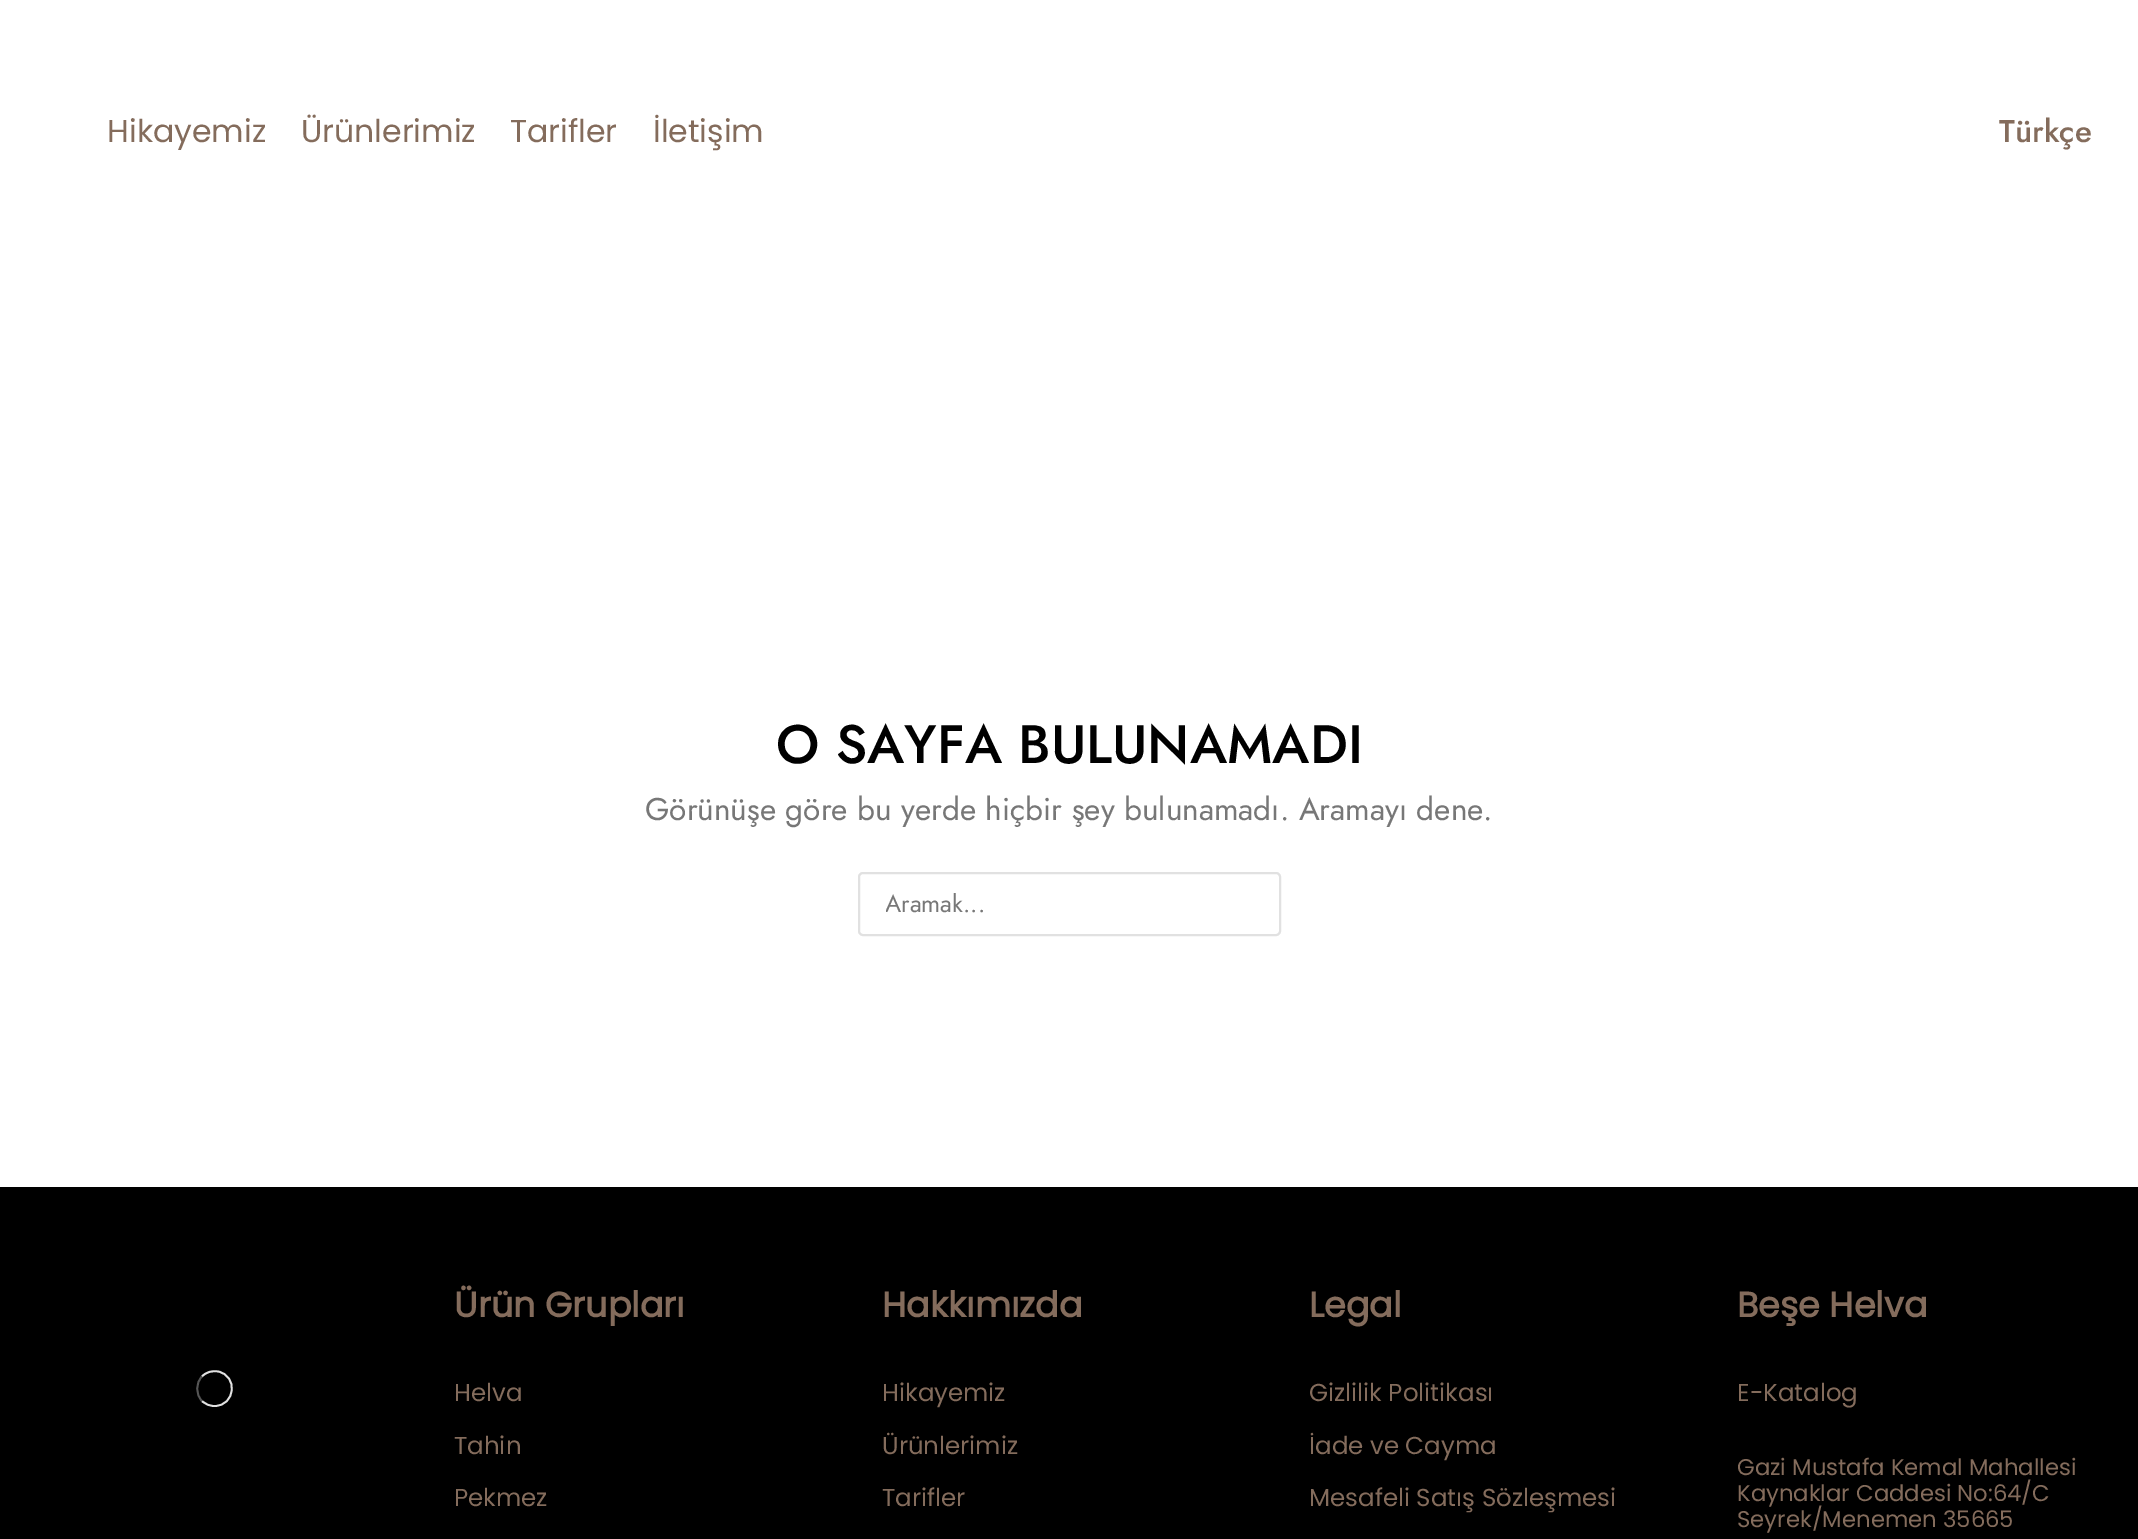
%!PS
<< /PageSize [2138 1539] >> setpagedevice
/rgb { dup -16 bitshift 255 div exch dup -8 bitshift 255 and 255 div exch 255 and 255 div setrgbcolor } def
/font { [ exch dup neg 0 0 3 -1 roll 0 0 ] selectfont } def
/text { moveto show } def
/roundrect { 5 dict begin { /r /h /w /y /x } { exch def } forall
  x r add y moveto x w add y 2 copy h add r arct x w add y h add x 1 index r arct
  x y h add x y r arct x y 2 copy exch w add exch r arct closepath end } def
0 1539 translate 1 -1 scale
4 setmiterlimit
/s1 { /Poppins-Regular 31.5 font 16#846C5C rgb } def
/s2 { /Jost-Medium 31.5 font 16#846C5C rgb } def
/s3 { /Jost-Medium 54 font 16#000000 rgb } def
/s4 { /Jost-Regular 31.5 font 16#777777 rgb } def
/s5 { /Jost-Regular 24.5 font 16#777777 rgb } def
/s6 { /Poppins-Bold 35 font 16#846C5C rgb } def
/s7 { /Poppins-Regular 24.5 font 16#846C5C rgb } def
/s8 { /Poppins-Regular 22.75 font 16#846C5C rgb } def
16#FFFFFF rgb
0 0 2138 1539 rectfill
s1
(Hikayemiz) 107 142 text
(Ürünlerimiz) 301 142 text
(Tarifler) 510 142 text
(İletişim) 653 142 text
s2
(Türkçe) 1999 142 text
s3
(O SAYFA BULUNAMADI) 776 763 text
s4
(Görünüşe göre bu yerde hiçbir şey bulunamadı. Aramayı dene.) 645 820 text
16#E1E1E1 rgb
2 setlinewidth
859 873 421 62 4 roundrect stroke
gsave
886 886 304 35 rectclip
s5
(Aramak...) 885 912 text
grestore
16#000000 rgb
0 1187 2138 352 rectfill
16#E1E1E1 rgb
1.8 setlinewidth
202 1376.5 moveto 206 1372 212 1370.5 218 1371.5 curveto 238.5 1375.5 235.5 1406 214.5 1406 curveto 210 1406 205.5 1404.5 202 1401 curveto stroke
16#555555 rgb
202 1401 moveto 195.5 1394.5 195.5 1383 202 1376.5 curveto stroke
s6
(Ürün Grupları) 454 1317 text
s7
(Helva) 454 1401 text
(Tahin) 454 1454 text
(Pekmez) 454 1506 text
s6
(Hakkımızda) 882 1317 text
s7
(Hikayemiz) 882 1401 text
(Ürünlerimiz) 882 1454 text
(Tarifler) 882 1506 text
s6
(Legal) 1309 1317 text
s7
(Gizlilik Politikası) 1309 1401 text
(İade ve Cayma) 1309 1454 text
(Mesafeli Satış Sözleşmesi) 1309 1506 text
s6
(Beşe Helva) 1737 1317 text
s7
(E-Katalog) 1737 1401 text
s8
(Gazi Mustafa Kemal Mahallesi) 1737 1475 text
(Kaynaklar Caddesi No:64/C) 1737 1501 text
(Seyrek/Menemen 35665) 1737 1527 text
showpage
